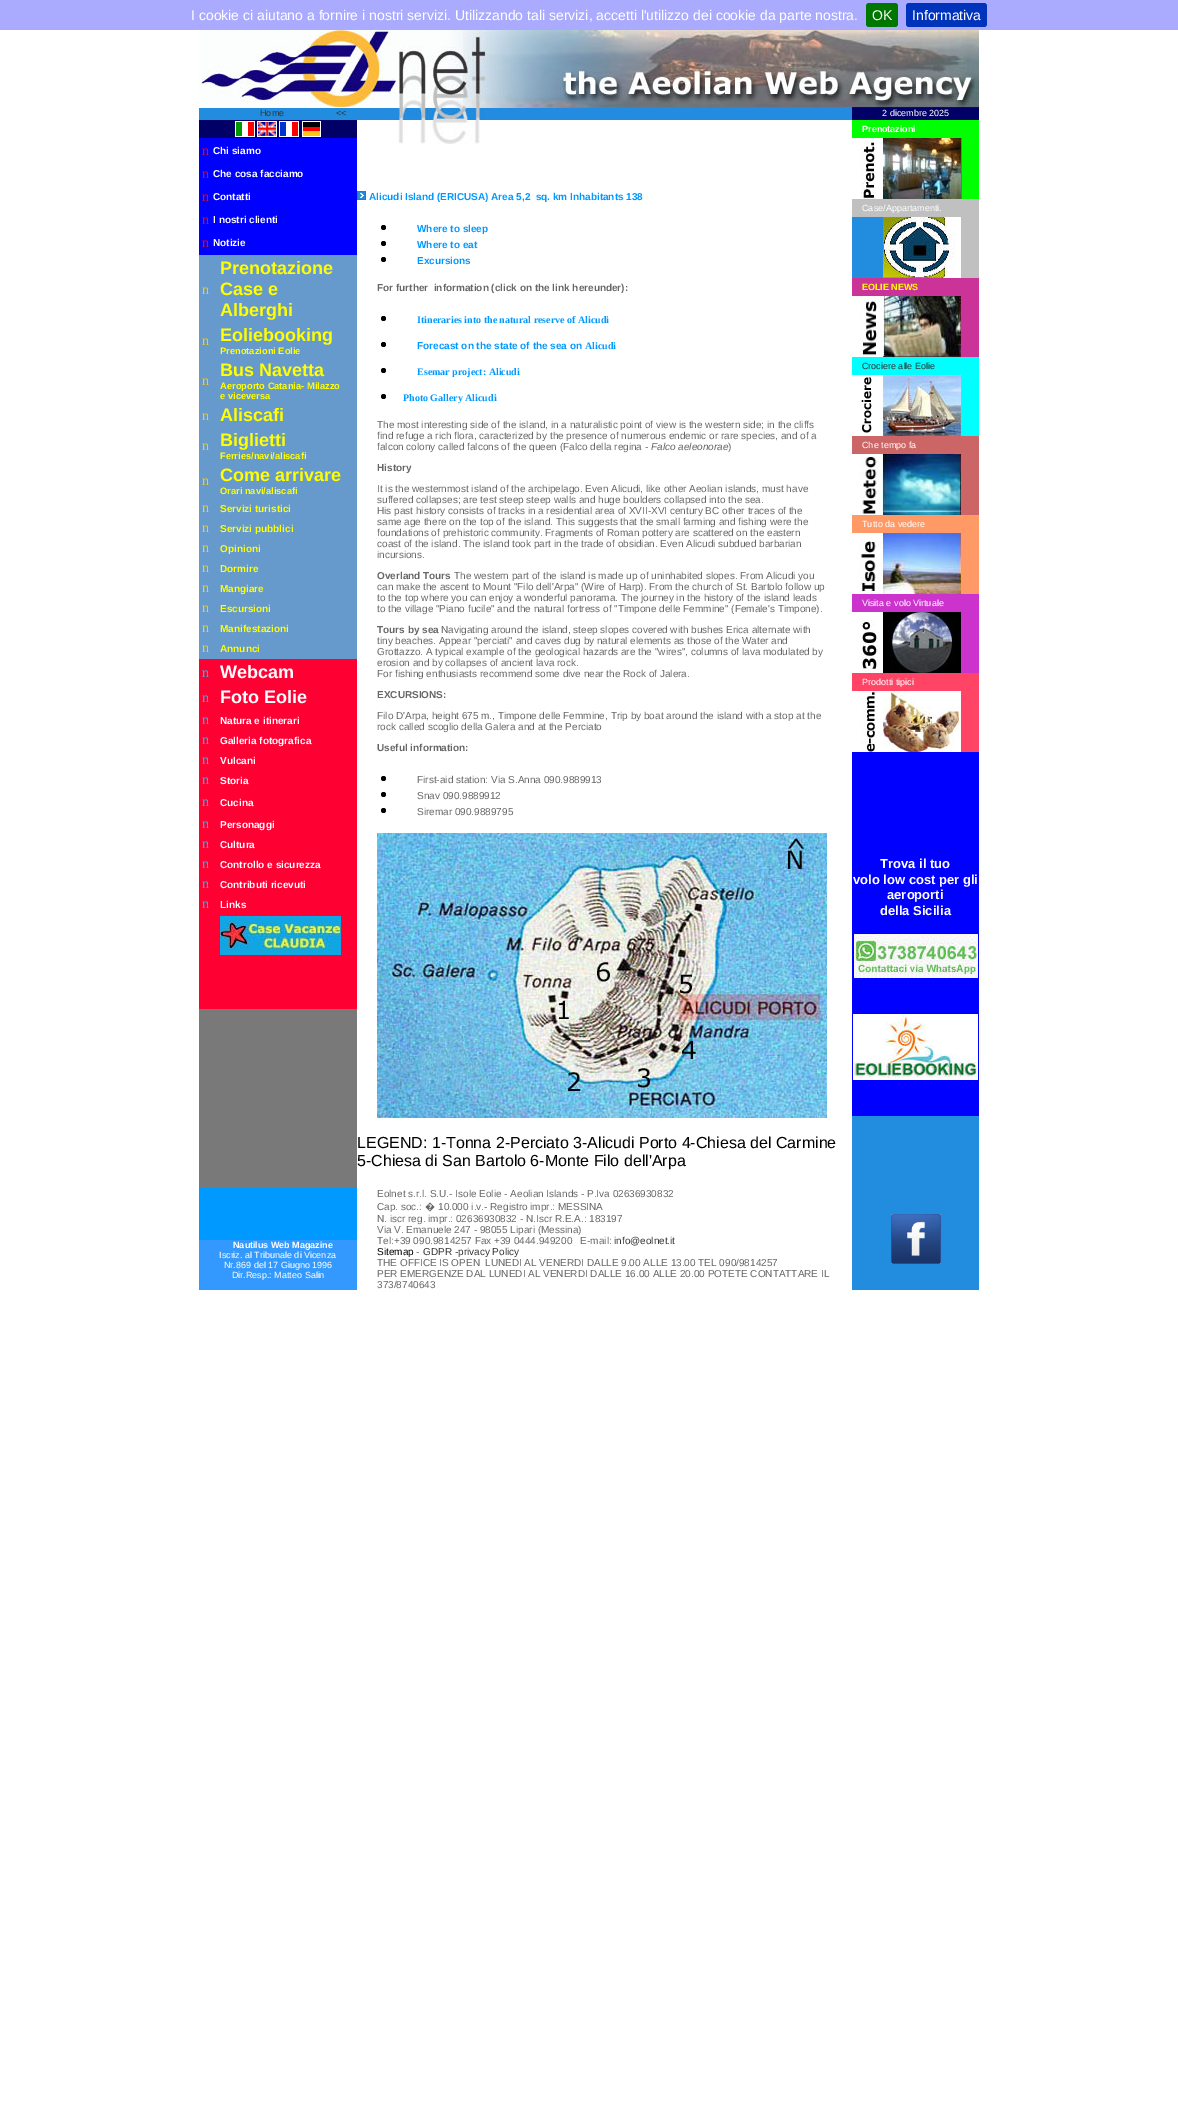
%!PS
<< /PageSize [1178 2104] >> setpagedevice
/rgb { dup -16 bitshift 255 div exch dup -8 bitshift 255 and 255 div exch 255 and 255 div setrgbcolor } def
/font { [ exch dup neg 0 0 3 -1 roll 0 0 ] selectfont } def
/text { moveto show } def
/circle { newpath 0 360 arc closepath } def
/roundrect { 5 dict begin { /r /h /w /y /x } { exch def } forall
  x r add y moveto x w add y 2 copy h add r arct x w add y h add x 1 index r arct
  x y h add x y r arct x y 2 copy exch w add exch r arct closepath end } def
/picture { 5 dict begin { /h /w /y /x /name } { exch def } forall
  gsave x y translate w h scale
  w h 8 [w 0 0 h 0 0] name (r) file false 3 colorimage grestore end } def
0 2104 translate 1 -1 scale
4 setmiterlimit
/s1 { /LiberationSans-Regular 14 font 16#FFFFFF rgb } def
/s2 { /LiberationSans-Regular 9 font 16#333333 rgb } def
/s3 { /LiberationSans-Regular 9 font 16#FFFFFF rgb } def
/s4 { /LiberationSerif-Regular 14 font 16#FF0000 rgb } def
/s5 { /LiberationSans-Bold 10 font 16#FFFFFF rgb } def
/s6 { /LiberationSerif-Regular 14 font 16#FFCC00 rgb } def
/s7 { /LiberationSans-Bold 18 font 16#FFFF00 rgb } def
/s8 { /LiberationSans-Bold 9.3 font 16#FFFF00 rgb } def
/s9 { /LiberationSans-Bold 10 font 16#FFFF00 rgb } def
/s10 { /LiberationSerif-Regular 14 font 16#00CCFF rgb } def
/s11 { /LiberationSans-Bold 18 font 16#FFFFFF rgb } def
/s12 { /LiberationSans-Bold 10 font 16#0099FF rgb } def
/s13 { /LiberationSans-Bold 10 font 16#666666 rgb } def
/s14 { /LiberationSerif-Bold 10 font 16#0099FF rgb } def
/s15 { /LiberationSans-Regular 10 font 16#666666 rgb } def
/s16 { /LiberationSans-Italic 10 font 16#666666 rgb } def
/s17 { /LiberationSans-Regular 16 font 16#000000 rgb } def
/s18 { /LiberationSans-Bold 9 font 16#FFFFFF rgb } def
/s19 { /LiberationSans-Bold 9 font 16#FFFF00 rgb } def
/s20 { /LiberationSans-Bold 13 font 16#FFFFFF rgb } def
/s21 { /NotoSans-Regular 10 font 16#666666 rgb } def
/s22 { /LiberationSans-Regular 10 font 16#333333 rgb } def
/s23 { /LiberationSans-Regular 10 font 16#000000 rgb } def
16#FFFFFF rgb
0 0 1178 2104 rectfill
16#AAAAFF rgb
0 0 1178 30 rectfill
s1
(I cookie ci aiutano a fornire i nostri servizi. Utilizzando tali servizi, accetti l'utilizzo dei cookie da parte nostra.) 191 20 text
16#007700 rgb
866 3 32 24 3 roundrect fill
s1
(OK) 872 20 text
16#0033BB rgb
906 3 81 24 3 roundrect fill
s1
(Informativa) 912 20 text
(pic1.raw) 199 30 780 78 picture
16#228CDF rgb
199 108 158 12 rectfill
s2
(Home) 260 116 text
(<<) 336 116 text
(pic2.raw) 357 108 495 12 picture
16#000066 rgb
852 108 127 12 rectfill
s3
(2 dicembre 2025) 882 116 text
16#797979 rgb
199 1009 158 179 rectfill
16#000066 rgb
199 120 158 18 rectfill
(pic3.raw) 235 121 20 16 picture
(pic4.raw) 257 121 20 16 picture
(pic5.raw) 279 121 20 16 picture
(pic6.raw) 302 121 19 16 picture
16#0000FF rgb
199 138 158 117 rectfill
s4
(n) 202 155 text
s5
(Chi siamo) 213 154 text
s4
(n) 202 178 text
s5
(Che cosa facciamo) 213 177 text
s4
(n) 202 201 text
s5
(Contatti) 213 200 text
s4
(n) 202 224 text
s5
(I nostri clienti) 213 223 text
s4
(n) 202 247 text
s5
(Notizie) 213 246 text
16#6699CC rgb
199 255 158 404 rectfill
s6
(n) 202 294 text
s7
(Prenotazione) 220 274 text
(Case e) 220 295 text
(Alberghi) 220 316 text
s6
(n) 202 345 text
s7
(Eoliebooking) 220 341 text
s8
(Prenotazioni Eolie) 220 354 text
s6
(n) 202 385 text
s7
(Bus Navetta) 220 376 text
s8
(Aeroporto Catania- Milazzo) 220 389 text
(e viceversa) 220 399 text
s6
(n) 202 420 text
s7
(Aliscafi) 220 421 text
s6
(n) 202 450 text
s7
(Biglietti) 220 446 text
s8
(Ferries/navi/aliscafi) 220 459 text
s6
(n) 202 485 text
s7
(Come arrivare) 220 481 text
s8
(Orari navi/aliscafi) 220 494 text
s6
(n) 202 512 text
s9
(Servizi turistici) 220 512 text
s6
(n) 202 532 text
s9
(Servizi pubblici) 220 532 text
s6
(n) 202 552 text
s9
(Opinioni) 220 552 text
s6
(n) 202 572 text
s9
(Dormire) 220 572 text
s6
(n) 202 592 text
s9
(Mangiare) 220 592 text
s6
(n) 202 612 text
s9
(Escursioni) 220 612 text
s6
(n) 202 632 text
s9
(Manifestazioni) 220 632 text
s6
(n) 202 652 text
s9
(Annunci) 220 652 text
16#FF0033 rgb
199 659 158 350 rectfill
s10
(n) 202 677 text
s11
(Webcam) 220 678 text
s10
(n) 202 702 text
s11
(Foto Eolie) 220 703 text
s10
(n) 202 724 text
s5
(Natura e itinerari) 220 724 text
s10
(n) 202 744 text
s5
(Galleria fotografica) 220 744 text
s10
(n) 202 764 text
s5
(Vulcani) 220 764 text
s10
(n) 202 784 text
s5
(Storia) 220 784 text
s10
(n) 202 806 text
s5
(Cucina) 220 806 text
s10
(n) 202 828 text
s5
(Personaggi) 220 828 text
s10
(n) 202 848 text
s5
(Cultura) 220 848 text
s10
(n) 202 868 text
s5
(Controllo e sicurezza) 220 868 text
s10
(n) 202 888 text
s5
(Contributi ricevuti) 220 888 text
s10
(n) 202 908 text
s5
(Links) 220 908 text
(pic7.raw) 220 916 121 39 picture
(pic8.raw) 398 120 82 24 picture
(pic9.raw) 357 191 9 9 picture
s12
(Alicudi Island \(ERICUSA\) Area 5,2  sq. km Inhabitants 138) 369 200 text
16#000000 rgb
383.5 227.5 2.5 circle fill
s12
(Where to sleep) 417 232 text
16#000000 rgb
383.5 243.5 2.5 circle fill
s12
(Where to eat) 417 248 text
16#000000 rgb
383.5 259.5 2.5 circle fill
s12
(Excursions) 417 264 text
s13
(For further  information \(click on the link hereunder\):) 377 291 text
16#000000 rgb
383.5 318.5 2.5 circle fill
s14
(Itineraries into the natural reserve of Alicudi) 417 323 text
16#000000 rgb
383.5 344.5 2.5 circle fill
s12
(Forecast on the state of the sea on) 417 349 text
s14
(Alicudi) 585 349 text
16#000000 rgb
383.5 370.5 2.5 circle fill
s14
(Esemar project: Alicudi) 417 375 text
16#000000 rgb
383.5 396.5 2.5 circle fill
s14
(Photo Gallery Alicudi) 403 401 text
s15
(The most interesting side of the island, in a naturalistic point of view is the western side; in the cliffs) 377 428 text
(find refuge a rich flora, caracterized by the presence of numerous endemic or rare species, and of a) 377 439 text
(falcon colony called falcons of the queen \(Falco della regina -) 377 450 text
s16
(Falco aeleonorae) 651 450 text
s15
(\)) 728 450 text
s13
(History) 377 471 text
s15
(It is the westernmost island of the archipelago. Even Alicudi, like other Aeolian islands, must have) 377 492 text
(suffered collapses; are test steep steep walls and huge boulders collapsed into the sea.) 377 503 text
(His past history consists of tracks in a residential area of XVII-XVI century BC other traces of the) 377 514 text
(same age there on the top of the island. This suggests that the small farming and fishing were the) 377 525 text
(foundations of prehistoric community. Fragments of Roman pottery are scattered on the eastern) 377 536 text
(coast of the island. The island took part in the trade of obsidian. Even Alicudi subdued barbarian) 377 547 text
(incursions.) 377 558 text
s13
(Overland Tours) 377 579 text
s15
(The western part of the island is made up of uninhabited slopes. From Alicudi you) 454 579 text
(can make the ascent to Mount "Filo dell'Arpa" \(Wire of Harp\). From the church of St. Bartolo follow up) 377 590 text
(to the top where you can enjoy a wonderful panorama. The journey in the history of the island leads) 377 601 text
(to the village "Piano fucile" and the natural fortress of "Timpone delle Femmine" \(Female's Timpone\).) 377 612 text
s13
(Tours by sea) 377 633 text
s15
(Navigating around the island, steep slopes covered with bushes Erica alternate with) 441 633 text
(tiny beaches. Appear "perciati" and caves dug by natural elements as those of the Water and) 377 644 text
(Grottazzo. A typical example of the geological hazards are the "wires", columns of lava modulated by) 377 655 text
(erosion and by collapses of ancient lava rock.) 377 666 text
(For fishing enthusiasts recommend some dive near the Rock of Jalera.) 377 677 text
s13
(EXCURSIONS:) 377 698 text
s15
(Filo D'Arpa, height 675 m., Timpone delle Femmine, Trip by boat around the island with a stop at the) 377 719 text
(rock called scoglio della Galera and at the Perciato) 377 730 text
s13
(Useful information:) 377 751 text
16#000000 rgb
383.5 778.5 2.5 circle fill
s15
(First-aid station: Via S.Anna 090.9889913) 417 783 text
16#000000 rgb
383.5 794.5 2.5 circle fill
s15
(Snav 090.9889912) 417 799 text
16#000000 rgb
383.5 810.5 2.5 circle fill
s15
(Siremar 090.9889795) 417 815 text
(pic10.raw) 377 833 450 285 picture
s17
(LEGEND: 1-Tonna 2-Perciato 3-Alicudi Porto 4-Chiesa del Carmine) 357 1148 text
(5-Chiesa di San Bartolo 6-Monte Filo dell'Arpa) 357 1166 text
16#228CDF rgb
852 217 127 1073 rectfill
16#CC33CC rgb
961 138 1 61 rectfill
16#00FF00 rgb
852 120 127 18 rectfill
s18
(Prenotazioni) 862 132 text
(pic11.raw) 852 138 31 61 picture
(pic12.raw) 883 138 78 61 picture
16#00FF00 rgb
962 138 17 61 rectfill
16#C0C0C0 rgb
852 199 127 18 rectfill
s3
(Case/Appartamenti.) 862 211 text
(pic13.raw) 883 217 78 61 picture
16#C0C0C0 rgb
961 217 18 61 rectfill
16#CC3399 rgb
852 278 127 18 rectfill
s19
(EOLIE NEWS) 862 290 text
(pic14.raw) 852 296 31 61 picture
(pic15.raw) 883 296 78 61 picture
16#CC3399 rgb
961 296 18 61 rectfill
16#00FFFF rgb
852 357 127 18 rectfill
s2
(Crociere alle Eolie) 862 369 text
(pic16.raw) 852 375 31 61 picture
(pic17.raw) 883 375 78 61 picture
16#00FFFF rgb
961 375 18 61 rectfill
16#CC6666 rgb
852 436 127 18 rectfill
s3
(Che tempo fa) 862 448 text
(pic18.raw) 852 454 31 61 picture
(pic19.raw) 883 454 78 61 picture
16#CC6666 rgb
961 454 18 61 rectfill
16#FF9966 rgb
852 515 127 18 rectfill
s3
(Tutto da vedere) 862 527 text
(pic20.raw) 852 533 31 61 picture
(pic21.raw) 883 533 78 61 picture
16#FF9966 rgb
961 533 18 61 rectfill
16#CC33CC rgb
852 594 127 18 rectfill
s3
(Visita e volo Virtuale) 862 606 text
(pic22.raw) 852 612 31 61 picture
(pic23.raw) 883 612 78 61 picture
16#CC33CC rgb
961 612 18 61 rectfill
16#FF4466 rgb
852 673 127 18 rectfill
s3
(Prodotti tipici) 862 685 text
(pic24.raw) 852 691 31 61 picture
(pic25.raw) 883 691 78 61 picture
16#FF4466 rgb
961 691 18 61 rectfill
16#0000FF rgb
852 752 127 364 rectfill
s20
(Trova il tuo) 880 868 text
(volo low cost per gli) 853 884 text
(aeroporti) 887 899 text
(della Sicilia) 880 915 text
(pic26.raw) 854 934 124 44 picture
(pic27.raw) 853 1014 125 66 picture
16#0099FF rgb
199 1188 158 52 rectfill
16#3399FF rgb
199 1240 158 50 rectfill
s18
(Nautilus Web Magazine) 233 1248 text
s3
(Iscriz. al Tribunale di Vicenza) 219 1258 text
(Nr.869 del 17 Giugno 1996) 224 1268 text
(Dir.Resp.: Matteo Salin) 232 1278 text
s15
(Eolnet s.r.l. S.U.- Isole Eolie - Aeolian Islands - P.Iva 02636930832) 377 1197 text
(Cap. soc.:) 377 1210 text
s21
(�) 425 1210 text
s15
(10.000 i.v.- Registro impr.: MESSINA) 438 1210 text
(N. iscr reg. impr.: 02636930832 - N.Iscr R.E.A.: 183197) 377 1222 text
(Via V. Emanuele 247 - 98055 Lipari \(Messina\)) 377 1233 text
(Tel:+39 090.9814257 Fax +39 0444.949200   E-mail:) 377 1244 text
s22
(info@eolnet.it) 614 1244 text
s23
(Sitemap) 377 1255 text
s15
(-) 416 1255 text
s22
(GDPR -privacy Policy) 423 1255 text
s15
(THE OFFICE IS OPEN) 377 1266 text
(LUNEDI AL VENERDI DALLE 9.00 ALLE 13.00 TEL 090/9814257) 485 1266 text
(PER EMERGENZE DAL LUNEDI AL VENERDI DALLE 16.00 ALLE 20.00 POTETE CONTATTARE IL) 377 1277 text
(373/8740643) 377 1288 text
(pic28.raw) 891 1214 50 50 picture
showpage
